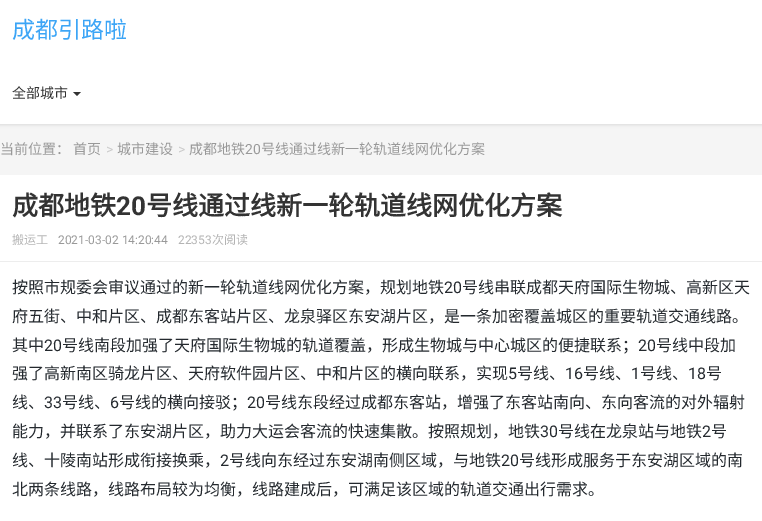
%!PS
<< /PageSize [762 521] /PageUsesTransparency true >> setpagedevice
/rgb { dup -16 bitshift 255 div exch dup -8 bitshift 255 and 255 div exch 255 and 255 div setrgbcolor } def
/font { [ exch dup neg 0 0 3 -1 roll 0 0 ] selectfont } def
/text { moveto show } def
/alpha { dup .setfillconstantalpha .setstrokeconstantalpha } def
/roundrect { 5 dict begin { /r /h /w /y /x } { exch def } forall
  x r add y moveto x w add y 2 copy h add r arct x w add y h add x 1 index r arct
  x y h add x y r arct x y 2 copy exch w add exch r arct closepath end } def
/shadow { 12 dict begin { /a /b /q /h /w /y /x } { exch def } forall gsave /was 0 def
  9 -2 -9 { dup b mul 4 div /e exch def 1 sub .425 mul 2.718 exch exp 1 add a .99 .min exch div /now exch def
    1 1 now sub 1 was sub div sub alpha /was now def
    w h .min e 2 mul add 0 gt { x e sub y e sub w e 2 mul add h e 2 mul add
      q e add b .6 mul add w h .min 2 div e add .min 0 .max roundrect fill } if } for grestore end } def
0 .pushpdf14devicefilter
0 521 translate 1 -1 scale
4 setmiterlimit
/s1 { /NotoSansCJKSC-Regular 23 font 16#3CA5F6 rgb } def
/s2 { /NotoSansCJKSC-Regular 14 font 16#333333 rgb } def
/s3 { /NotoSansCJKSC-Regular 14 font 16#999999 rgb } def
/s4 { /Roboto-Regular 14 font 16#CCCCCC rgb } def
/s5 { /Roboto-Regular 14 font 16#999999 rgb } def
/s6 { /NotoSansCJKSC-Bold 26 font 16#333333 rgb } def
/s7 { /Roboto-Bold 26 font 16#333333 rgb } def
/s8 { /NotoSansCJKSC-Regular 12 font 16#B4B4B4 rgb } def
/s9 { /Roboto-Regular 12 font 16#999999 rgb } def
/s10 { /Roboto-Regular 12 font 16#B4B4B4 rgb } def
/s11 { /NotoSansCJKSC-Regular 16 font 16#24292E rgb } def
/s12 { /Roboto-Regular 16 font 16#24292E rgb } def
16#F5F5F5 rgb
0 0 762 521 rectfill
16#000000 rgb
-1 -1 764 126 0 1.5 0.1 shadow
16#FFFFFF rgb
0 0 762 124 rectfill
s1
(成都引路啦) 12 38 text
s2
(全部城市) 12 98 text
73 92 moveto 81 92 lineto 77 96 lineto closepath fill
s3
(当前位置：) 0 154 text
(首页) 73 154 text
s4
(>) 106 154 text
s3
(城市建设) 117 154 text
s4
(>) 178 154 text
s3
(成都地铁) 189 154 text
s5
(20) 245 154 text
s3
(号线通过线新一轮轨道线网优化方案) 261 154 text
16#FFFFFF rgb
0 175 762 346 rectfill
16#EDEDED rgb
0 261 762 1 rectfill
s6
(成都地铁) 12 215 text
s7
(20) 116 215 text
s6
(号线通过线新一轮轨道线网优化方案) 146 215 text
s8
(搬运工) 12 244 text
s9
(2021-03-02 14:20:44) 58 244 text
s10
(22353) 178 244 text
s8
(次阅读) 212 244 text
s11
(按照市规委会审议通过的新一轮轨道线网优化方案，规划地铁) 12 293 text
s12
(20) 444 293 text
s11
(号线串联成都天府国际生物城、高新区天) 462 293 text
(府五街、中和片区、成都东客站片区、龙泉驿区东安湖片区，是一条加密覆盖城区的重要轨道交通线路。) 12 322 text
(其中) 12 351 text
s12
(20) 44 351 text
s11
(号线南段加强了天府国际生物城的轨道覆盖，形成生物城与中心城区的便捷联系；) 62 351 text
s12
(20) 638 351 text
s11
(号线中段加) 656 351 text
(强了高新南区骑龙片区、天府软件园片区、中和片区的横向联系，实现) 12 379 text
s12
(5) 508 379 text
s11
(号线、) 517 379 text
s12
(16) 565 379 text
s11
(号线、) 583 379 text
s12
(1) 631 379 text
s11
(号线、) 640 379 text
s12
(18) 688 379 text
s11
(号) 706 379 text
(线、) 12 408 text
s12
(33) 44 408 text
s11
(号线、) 62 408 text
s12
(6) 110 408 text
s11
(号线的横向接驳；) 119 408 text
s12
(20) 247 408 text
s11
(号线东段经过成都东客站，增强了东客站南向、东向客流的对外辐射) 265 408 text
(能力，并联系了东安湖片区，助力大运会客流的快速集散。按照规划，地铁) 12 437 text
s12
(30) 540 437 text
s11
(号线在龙泉站与地铁) 558 437 text
s12
(2) 702 437 text
s11
(号) 711 437 text
(线、十陵南站形成衔接换乘，) 12 466 text
s12
(2) 220 466 text
s11
(号线向东经过东安湖南侧区域，与地铁) 229 466 text
s12
(20) 501 466 text
s11
(号线形成服务于东安湖区域的南) 519 466 text
(北两条线路，线路布局较为均衡，线路建成后，可满足该区域的轨道交通出行需求。) 12 495 text
.poppdf14devicefilter showpage
